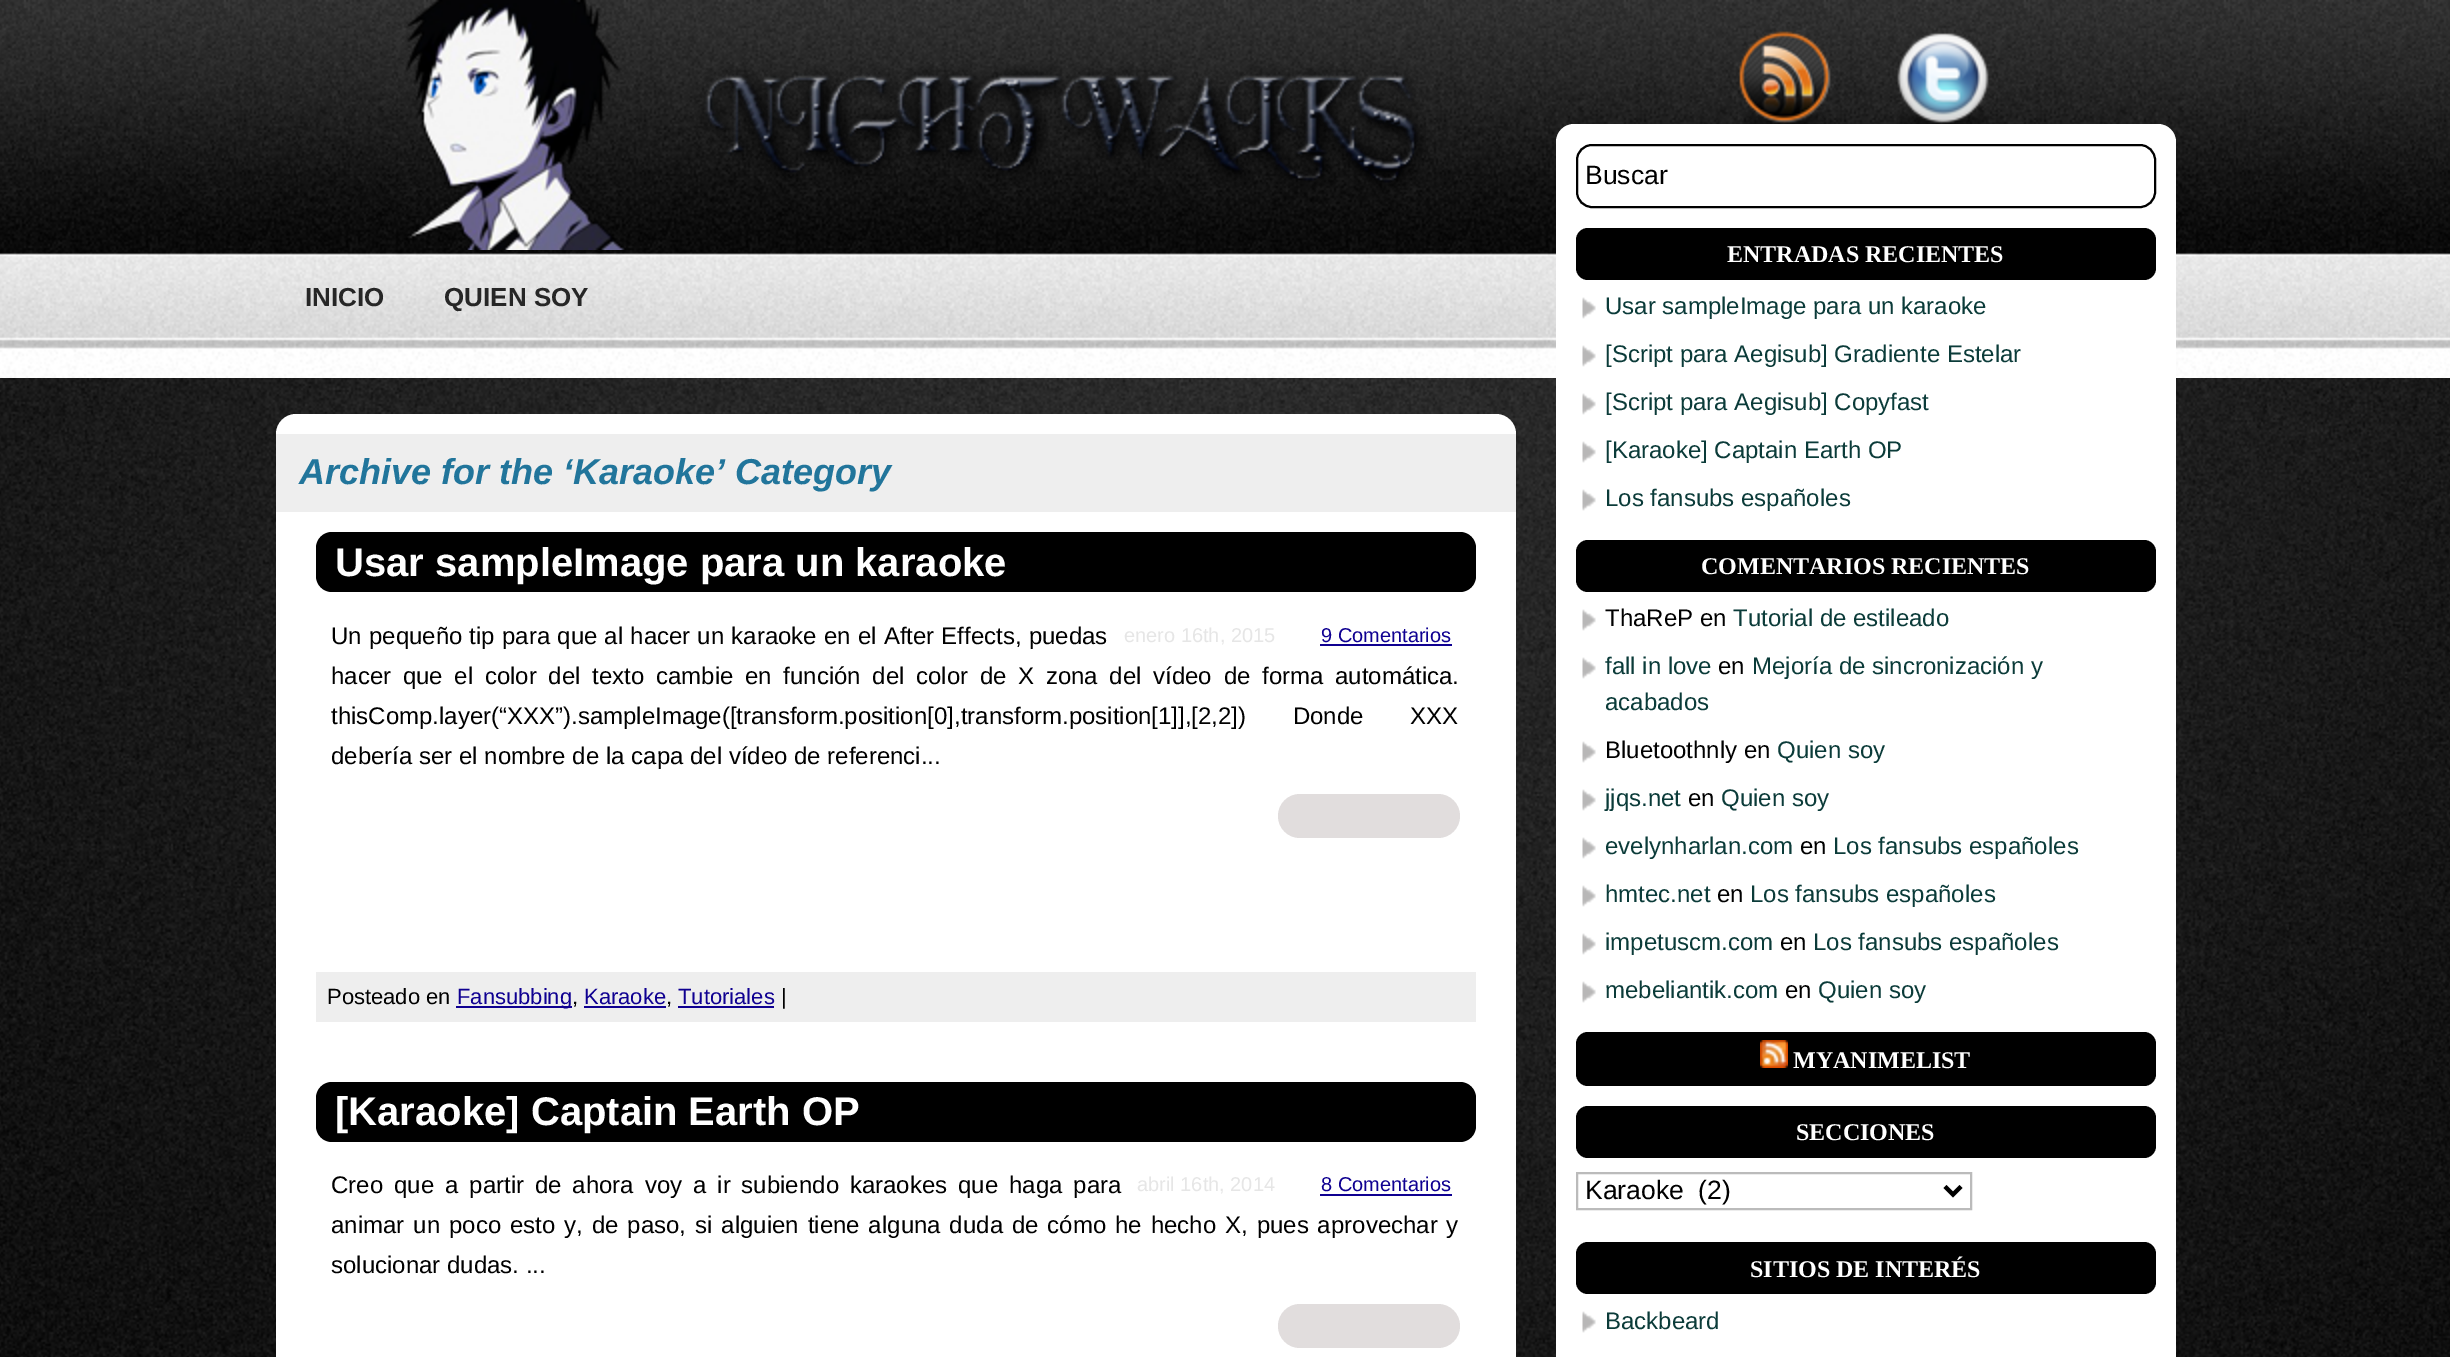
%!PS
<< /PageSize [2450 1357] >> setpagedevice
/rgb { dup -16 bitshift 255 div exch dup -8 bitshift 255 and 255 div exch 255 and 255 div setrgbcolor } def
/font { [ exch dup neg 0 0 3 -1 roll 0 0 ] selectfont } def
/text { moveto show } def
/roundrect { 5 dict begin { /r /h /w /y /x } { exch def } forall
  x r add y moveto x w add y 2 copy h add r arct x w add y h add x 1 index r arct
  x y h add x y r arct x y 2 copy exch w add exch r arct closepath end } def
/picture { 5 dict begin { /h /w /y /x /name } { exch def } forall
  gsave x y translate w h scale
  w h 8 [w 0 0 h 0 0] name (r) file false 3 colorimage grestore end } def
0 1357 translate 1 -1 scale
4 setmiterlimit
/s1 { /LiberationSans-Bold 26 font 16#262626 rgb } def
/s2 { /LiberationSans-BoldItalic 36 font 16#21759B rgb } def
/s3 { /LiberationSans-Bold 40 font 16#FFFFFF rgb } def
/s4 { /LiberationSans-Regular 24 font 16#000000 rgb } def
/s5 { /LiberationSans-Regular 20 font 16#E6E6E6 rgb } def
/s6 { /LiberationSans-Regular 20 font 16#0F0091 rgb } def
/s7 { /LiberationSans-Regular 22 font 16#000000 rgb } def
/s8 { /LiberationSans-Regular 22 font 16#0F0091 rgb } def
/s9 { /LiberationSans-Regular 26.5 font 16#000000 rgb } def
/s10 { /LiberationSerif-Bold 24 font 16#FFFFFF rgb } def
/s11 { /LiberationSans-Regular 24 font 16#0B3B39 rgb } def
16#FFFFFF rgb
0 0 2450 1357 rectfill
(pic1.raw) 0 0 2450 1357 picture
(pic2.raw) 404 0 1022 250 picture
s1
(INICIO) 305 306 text
(QUIEN SOY) 444 306 text
16#FFFFFF rgb
276 414 1240 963 20 roundrect fill
16#EEEEEE rgb
276 434 1240 78 rectfill
s2
(Archive for the ‘Karaoke’ Category) 299 484 text
16#000000 rgb
316 532 1160 60 16 roundrect fill
s3
(Usar sampleImage para un karaoke) 335 576 text
/LiberationSans-Regular 24 font
16#000000 rgb
331 644 moveto 0.5 0 32 (Un pequeño tip para que al hacer un karaoke en el After Effects, puedas) widthshow
331 684 moveto 5 0 32 (hacer que el color del texto cambie en función del color de X zona del vídeo de forma automática.) widthshow
331 724 moveto 40 0 32 (thisComp.layer\(“XXX”\).sampleImage\([transform.position[0],transform.position[1]],[2,2]\) Donde XXX) widthshow
(debería ser el nombre de la capa del vídeo de referenci...) 331 764 text
16#E1DDDD rgb
1278 794 182 44 22 roundrect fill
s5
(enero 16th, 2015) 1124 642 text
s6
(9 Comentarios) 1321 642 text
1320 644 132 2 rectfill
16#EEEEEE rgb
316 972 1160 50 rectfill
s7
(Posteado en) 327 1004 text
16#0F0091 rgb
456 1006 116 2 rectfill
(Fansubbing) 457 1004 text
s7
(,) 572 1004 text
s8
(Karaoke) 584 1004 text
584 1006 82 2 rectfill
s7
(,) 666 1004 text
s8
(Tutoriales) 678 1004 text
678 1006 96 2 rectfill
s7
(|) 781 1004 text
316 1082 1160 60 16 roundrect fill
s3
([Karaoke] Captain Earth OP) 335 1125 text
/LiberationSans-Regular 24 font
16#000000 rgb
331 1193 moveto 4.25 0 32 (Creo que a partir de ahora voy a ir subiendo karaokes que haga para) widthshow
331 1233 moveto 2.25 0 32 (animar un poco esto y, de paso, si alguien tiene alguna duda de cómo he hecho X, pues aprovechar y) widthshow
(solucionar dudas. ...) 331 1273 text
16#E1DDDD rgb
1278 1304 182 44 22 roundrect fill
s5
(abril 16th, 2014) 1137 1191 text
s6
(8 Comentarios) 1321 1191 text
1320 1194 132 2 rectfill
(pic3.raw) 1739 31 92 93 picture
(pic4.raw) 1897 33 92 91 picture
16#FFFFFF rgb
1556 124 620 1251 18 roundrect fill
16#000000 rgb
2 setlinewidth
1577 145 578 62 15 roundrect stroke
s9
(Buscar) 1585 184 text
1576 228 580 52 12 roundrect fill
s10
(ENTRADAS RECIENTES) 1727 262 text
(pic5.raw) 1582 297 14 22 picture
s11
(Usar sampleImage para un karaoke) 1605 314 text
(pic5.raw) 1582 345 14 22 picture
([Script para Aegisub] Gradiente Estelar) 1605 362 text
(pic5.raw) 1582 393 14 22 picture
([Script para Aegisub] Copyfast) 1605 410 text
(pic5.raw) 1582 441 14 22 picture
([Karaoke] Captain Earth OP) 1605 458 text
(pic5.raw) 1582 489 14 22 picture
(Los fansubs españoles) 1605 506 text
16#000000 rgb
1576 540 580 52 12 roundrect fill
s10
(COMENTARIOS RECIENTES) 1701 574 text
(pic5.raw) 1582 609 14 22 picture
s4
(ThaReP en) 1605 626 text
s11
(Tutorial de estileado) 1733 626 text
(pic5.raw) 1582 657 14 22 picture
(fall in love) 1605 674 text
s4
(en) 1718 674 text
s11
(Mejoría de sincronización y) 1752 674 text
(acabados) 1605 710 text
(pic5.raw) 1582 741 14 22 picture
s4
(Bluetoothnly en) 1605 758 text
s11
(Quien soy) 1777 758 text
(pic5.raw) 1582 789 14 22 picture
(jjqs.net) 1605 806 text
s4
(en) 1688 806 text
s11
(Quien soy) 1721 806 text
(pic5.raw) 1582 837 14 22 picture
(evelynharlan.com) 1605 854 text
s4
(en) 1800 854 text
s11
(Los fansubs españoles) 1833 854 text
(pic5.raw) 1582 885 14 22 picture
(hmtec.net) 1605 902 text
s4
(en) 1717 902 text
s11
(Los fansubs españoles) 1750 902 text
(pic5.raw) 1582 933 14 22 picture
(impetuscm.com) 1605 950 text
s4
(en) 1780 950 text
s11
(Los fansubs españoles) 1813 950 text
(pic5.raw) 1582 981 14 22 picture
(mebeliantik.com) 1605 998 text
s4
(en) 1785 998 text
s11
(Quien soy) 1818 998 text
16#000000 rgb
1576 1032 580 54 12 roundrect fill
(pic6.raw) 1760 1040 28 28 picture
s10
(MYANIMELIST) 1793 1068 text
16#000000 rgb
1576 1106 580 52 12 roundrect fill
s10
(SECCIONES) 1796 1140 text
16#BBBBBB rgb
1577 1173 394 36 rectstroke
16#000000 rgb
4 setlinewidth
1945 1186.5 moveto 1953 1194.5 lineto 1961 1186.5 lineto stroke
s9
(Karaoke  \(2\)) 1585 1199 text
1576 1242 580 52 12 roundrect fill
s10
(SITIOS DE INTERÉS) 1750 1277 text
(pic5.raw) 1582 1311 14 22 picture
s11
(Backbeard) 1605 1329 text
showpage
